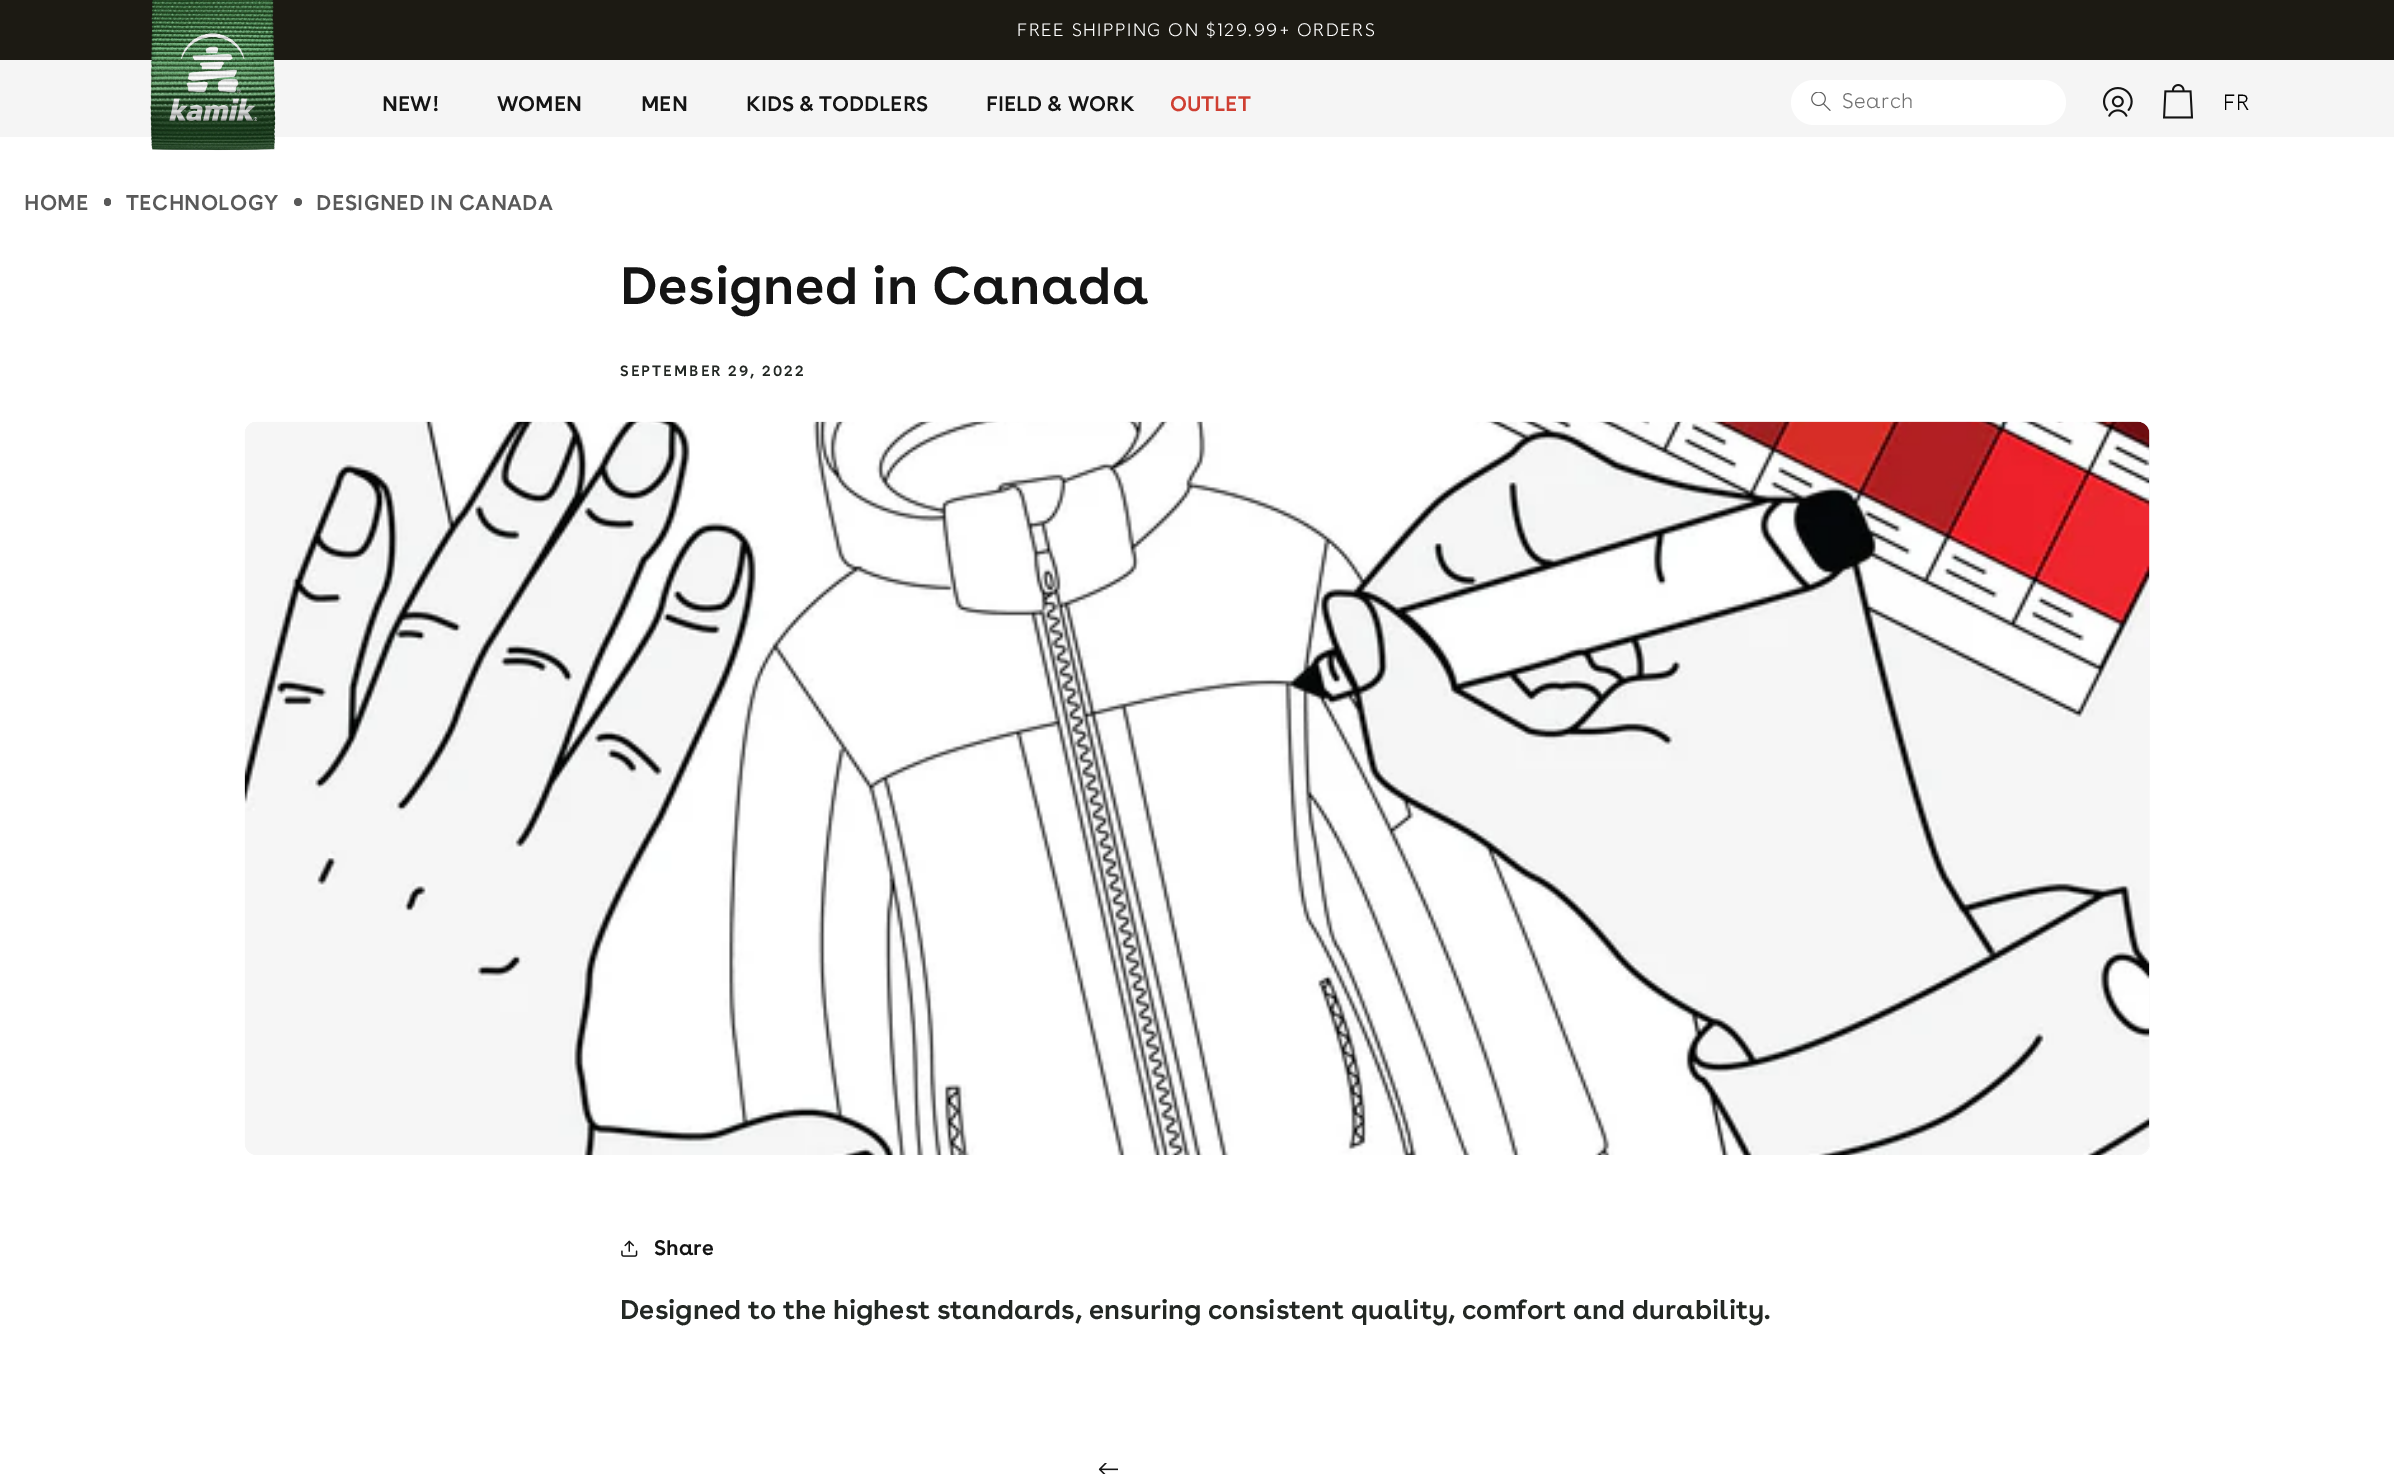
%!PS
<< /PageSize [2394 1474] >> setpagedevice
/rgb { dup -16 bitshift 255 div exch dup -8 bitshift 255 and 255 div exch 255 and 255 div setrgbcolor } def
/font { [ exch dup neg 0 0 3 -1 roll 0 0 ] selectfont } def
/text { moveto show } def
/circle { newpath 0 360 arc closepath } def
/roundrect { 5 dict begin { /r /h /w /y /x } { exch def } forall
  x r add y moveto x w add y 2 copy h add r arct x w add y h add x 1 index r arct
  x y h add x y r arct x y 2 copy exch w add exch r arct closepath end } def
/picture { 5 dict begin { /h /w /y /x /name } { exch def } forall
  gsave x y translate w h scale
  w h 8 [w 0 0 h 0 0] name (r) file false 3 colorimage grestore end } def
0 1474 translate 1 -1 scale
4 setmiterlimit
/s1 { /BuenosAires-SemiBold 21 font 16#141414 rgb } def
/s2 { /BuenosAires-SemiBold 21 font 16#CF3F32 rgb } def
/s3 { /BuenosAires-Light 22 font 16#000000 rgb } def
/s4 { /BuenosAires-SemiBold 27 font 16#232824 rgb } def
16#FFFFFF rgb
0 0 2394 1474 rectfill
16#1C1A13 rgb
0 0 2394 60 rectfill
/BuenosAires-Light 18 font
16#FFFFFF rgb
1017 36 moveto 1.5 0 (FREE SHIPPING ON $129.99+ ORDERS) ashow
16#F5F5F5 rgb
0 60 2394 77 rectfill
(pic1.raw) 150 0 126 151 picture
s1
(NEW!) 382 111 text
(WOMEN) 497 111 text
(MEN) 641 111 text
(KIDS & TODDLERS) 746 111 text
(FIELD & WORK) 986 111 text
s2
(OUTLET) 1170 111 text
16#FFFFFF rgb
1791 80 275 45 22.5 roundrect fill
(pic2.raw) 1811 92 20 19 picture
/BuenosAires-Light 21 font
16#737373 rgb
1842 108 moveto 0.5 0 (Search) ashow
(pic3.raw) 2103 87 30 30 picture
(pic4.raw) 2163 84 31 35 picture
s3
(FR) 2223 110 text
/BuenosAires-SemiBold 21.25 font
16#595959 rgb
24 210 moveto 0.4 0 (HOME) ashow
104 198 7 8 3.5 roundrect fill
126 210 moveto 0.4 0 (TECHNOLOGY) ashow
298 202 4 circle fill
316 210 moveto 0.4 0 (DESIGNED IN CANADA) ashow
/BuenosAires-SemiBold 52.5 font
16#141414 rgb
620 304 moveto 0.4 0 (Designed in Canada) ashow
/BuenosAires-SemiBold 15 font
16#232824 rgb
620 376 moveto 2 0 (SEPTEMBER 29, 2022) ashow
gsave 245 422 1905 733 12 roundrect clip newpath
<< /ShadingType 2 /ColorSpace /DeviceRGB /Coords [1197 421 1197 1155] /Extend [true true] /Function << /FunctionType 2 /Domain [0 1] /C0 [0.953 0.953 0.953] /C1 [0.988 0.988 0.988] /N 1 >> >> shfill grestore
(pic5.raw) 244 421 1906 734 picture
(pic6.raw) 621 1240 17 17 picture
s1
(Share) 654 1255 text
s4
(Designed to the highest standards, ensuring consistent quality, comfort and durability.) 620 1319 text
(pic7.raw) 1098 1463 20 11 picture
showpage
